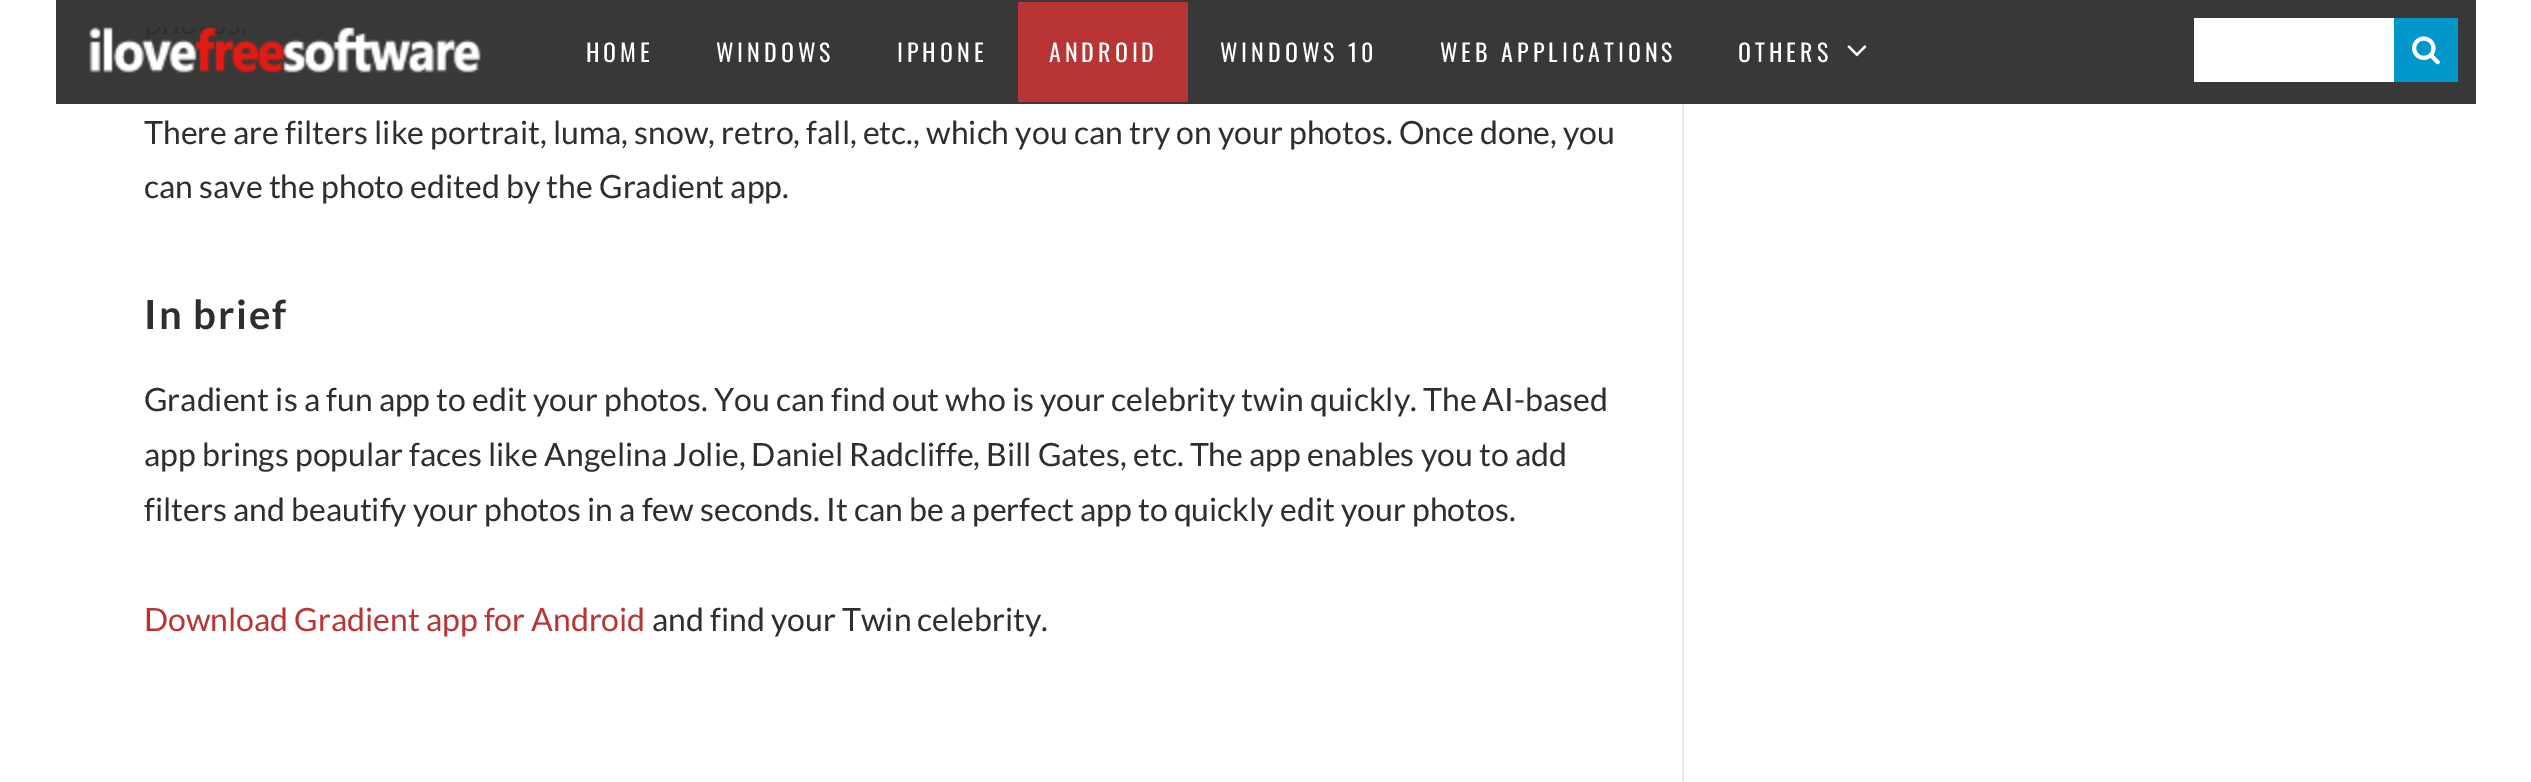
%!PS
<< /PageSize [2531 782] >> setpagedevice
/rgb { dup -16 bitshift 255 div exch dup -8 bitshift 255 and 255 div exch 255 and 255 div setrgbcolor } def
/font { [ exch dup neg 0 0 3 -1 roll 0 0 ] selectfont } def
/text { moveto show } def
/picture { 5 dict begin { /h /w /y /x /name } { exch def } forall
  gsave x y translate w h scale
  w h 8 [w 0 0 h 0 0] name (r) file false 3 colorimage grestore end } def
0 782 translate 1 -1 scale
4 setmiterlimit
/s1 { /Lato-Regular 32 font 16#2E2E2E rgb } def
/s2 { /Lato-Regular 32 font 16#B93434 rgb } def
16#FFFFFF rgb
0 0 2531 782 rectfill
16#383838 rgb
56 0 2420 104 rectfill
(pic1.raw) 89 27 392 46 picture
/Oswald-Regular 24 font
16#FFFFFF rgb
586 62 moveto 4 0 (HOME) ashow
716 62 moveto 4 0 (WINDOWS) ashow
897 62 moveto 4 0 (IPHONE) ashow
16#B93434 rgb
1018 2 170 100 rectfill
16#FFFFFF rgb
1049 62 moveto 4 0 (ANDROID) ashow
1220 62 moveto 4 0 (WINDOWS 10) ashow
1440 62 moveto 4 0 (WEB APPLICATIONS) ashow
1738 62 moveto 4 0 (OTHERS) ashow
(pic2.raw) 1847 45 20 12 picture
2194 18 200 64 rectfill
16#0098CA rgb
2394 18 64 64 rectfill
(pic3.raw) 2412 36 28 29 picture
s1
(There are filters like portrait, luma, snow, retro, fall, etc., which you can try on your photos. Once done, you) 144 144 text
(can save the photo edited by the Gradient app.) 144 198 text
/Lato-Bold 40 font
144 329 moveto 2 0 (In brief) ashow
s1
(Gradient is a fun app to edit your photos. You can find out who is your celebrity twin quickly. The AI-based) 144 411 text
(app brings popular faces like Angelina Jolie, Daniel Radcliffe, Bill Gates, etc. The app enables you to add) 144 466 text
(filters and beautify your photos in a few seconds. It can be a perfect app to quickly edit your photos.) 144 521 text
s2
(Download Gradient app for Android) 144 631 text
s1
(and find your Twin celebrity.) 652 631 text
16#E6E6E6 rgb
1682 104 2 678 rectfill
showpage
